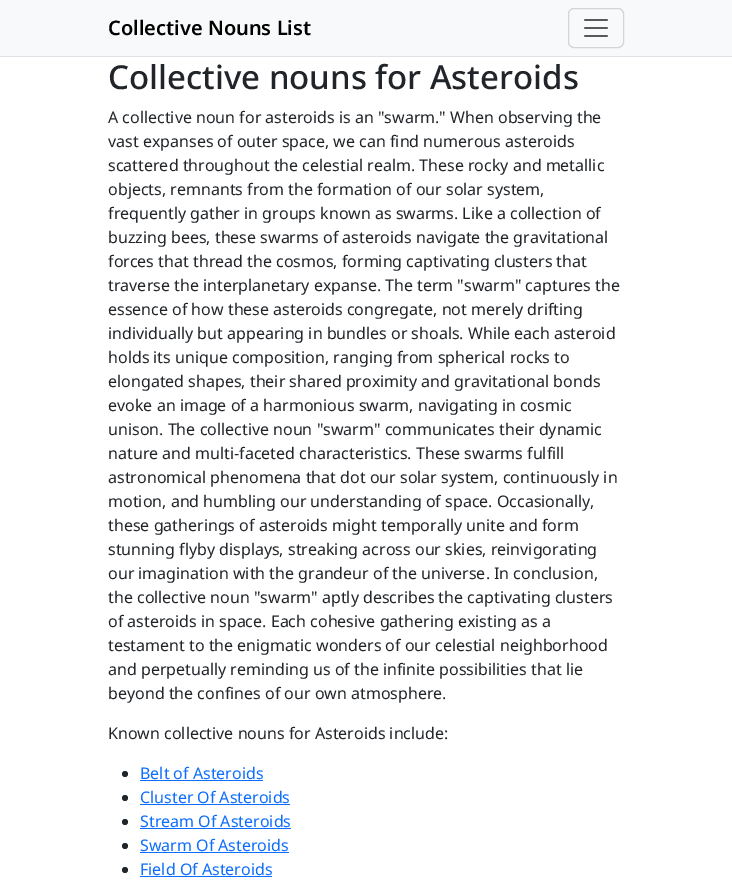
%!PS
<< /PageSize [732 884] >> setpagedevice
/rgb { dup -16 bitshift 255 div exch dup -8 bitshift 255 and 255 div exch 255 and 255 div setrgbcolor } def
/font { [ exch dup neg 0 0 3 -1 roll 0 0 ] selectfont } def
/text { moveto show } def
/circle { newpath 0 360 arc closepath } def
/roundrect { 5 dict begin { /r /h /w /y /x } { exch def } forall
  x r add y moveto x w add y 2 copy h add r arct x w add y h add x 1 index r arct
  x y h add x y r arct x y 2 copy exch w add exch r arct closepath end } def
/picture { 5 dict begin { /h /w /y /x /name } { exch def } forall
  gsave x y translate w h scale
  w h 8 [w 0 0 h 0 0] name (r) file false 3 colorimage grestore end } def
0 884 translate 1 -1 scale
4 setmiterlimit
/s1 { /NotoSans-SemiBold 20 font 16#000000 rgb } def
/s2 { /NotoSans-Medium 33 font 16#212529 rgb } def
/s3 { /NotoSans-Regular 16 font 16#212529 rgb } def
/s4 { /NotoSans-Regular 16 font 16#0D6EFD rgb } def
16#FFFFFF rgb
0 0 732 884 rectfill
16#F8F9FA rgb
0 0 732 56 rectfill
16#DEE2E6 rgb
0 56 732 1 rectfill
s1
(Collective Nouns List) 108 35 text
16#D3D4D5 rgb
568.5 8.5 55 39 5.5 roundrect stroke
(pic1.raw) 584 19 24 18 picture
s2
(Collective nouns for Asteroids) 108 89 text
s3
(A collective noun for asteroids is an "swarm." When observing the) 108 123 text
(vast expanses of outer space, we can find numerous asteroids) 108 147 text
(scattered throughout the celestial realm. These rocky and metallic) 108 171 text
(objects, remnants from the formation of our solar system,) 108 195 text
(frequently gather in groups known as swarms. Like a collection of) 108 219 text
(buzzing bees, these swarms of asteroids navigate the gravitational) 108 243 text
(forces that thread the cosmos, forming captivating clusters that) 108 267 text
(traverse the interplanetary expanse. The term "swarm" captures the) 108 291 text
(essence of how these asteroids congregate, not merely drifting) 108 315 text
(individually but appearing in bundles or shoals. While each asteroid) 108 339 text
(holds its unique composition, ranging from spherical rocks to) 108 363 text
(elongated shapes, their shared proximity and gravitational bonds) 108 387 text
(evoke an image of a harmonious swarm, navigating in cosmic) 108 411 text
(unison. The collective noun "swarm" communicates their dynamic) 108 435 text
(nature and multi-faceted characteristics. These swarms fulfill) 108 459 text
(astronomical phenomena that dot our solar system, continuously in) 108 483 text
(motion, and humbling our understanding of space. Occasionally,) 108 507 text
(these gatherings of asteroids might temporally unite and form) 108 531 text
(stunning flyby displays, streaking across our skies, reinvigorating) 108 555 text
(our imagination with the grandeur of the universe. In conclusion,) 108 579 text
(the collective noun "swarm" aptly describes the captivating clusters) 108 603 text
(of asteroids in space. Each cohesive gathering existing as a) 108 627 text
(testament to the enigmatic wonders of our celestial neighborhood) 108 651 text
(and perpetually reminding us of the infinite possibilities that lie) 108 675 text
(beyond the confines of our own atmosphere.) 108 699 text
(Known collective nouns for Asteroids include:) 108 739 text
125 774 3 circle fill
s4
(Belt of Asteroids) 140 779 text
140 780 123 1 rectfill
16#212529 rgb
125 798 3 circle fill
s4
(Cluster Of Asteroids) 140 803 text
140 804 150 1 rectfill
16#212529 rgb
125 822 3 circle fill
s4
(Stream Of Asteroids) 140 827 text
140 828 151 1 rectfill
16#212529 rgb
125 846 3 circle fill
s4
(Swarm Of Asteroids) 140 851 text
140 852 149 1 rectfill
16#212529 rgb
125 870 3 circle fill
s4
(Field Of Asteroids) 140 875 text
140 876 132 1 rectfill
showpage
